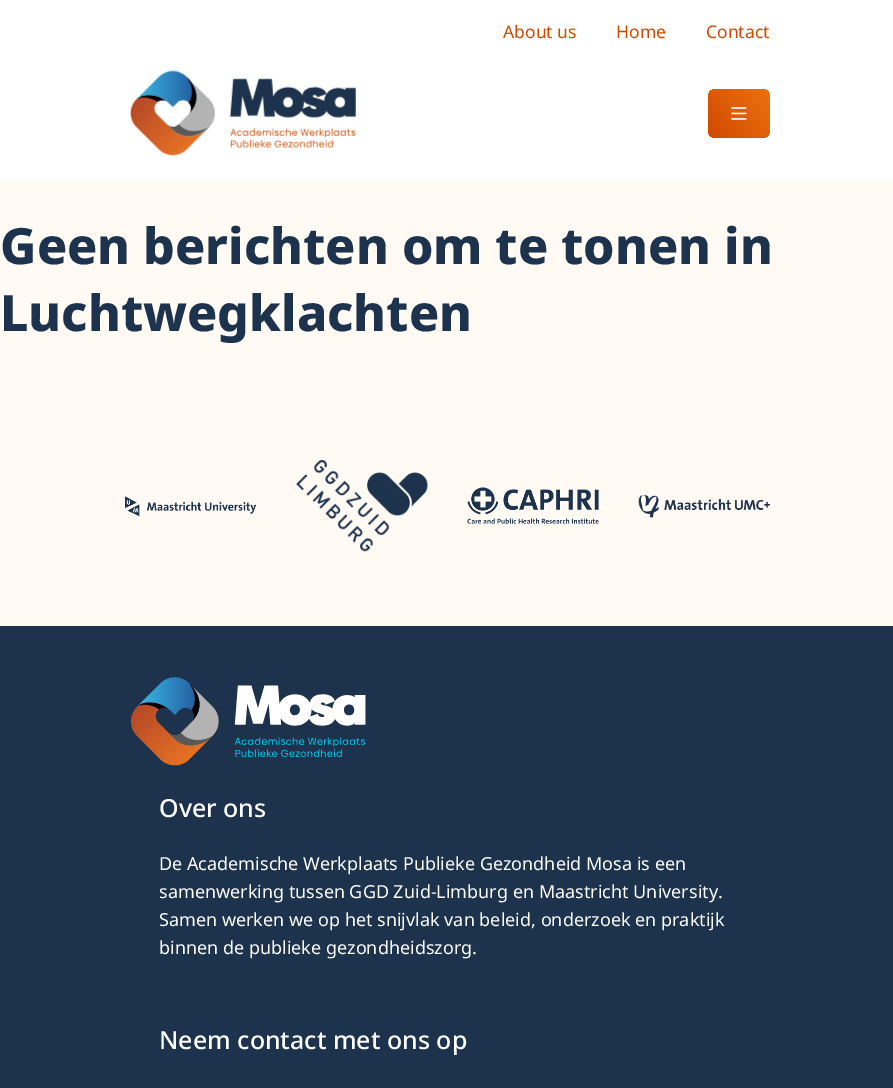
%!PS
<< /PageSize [893 1088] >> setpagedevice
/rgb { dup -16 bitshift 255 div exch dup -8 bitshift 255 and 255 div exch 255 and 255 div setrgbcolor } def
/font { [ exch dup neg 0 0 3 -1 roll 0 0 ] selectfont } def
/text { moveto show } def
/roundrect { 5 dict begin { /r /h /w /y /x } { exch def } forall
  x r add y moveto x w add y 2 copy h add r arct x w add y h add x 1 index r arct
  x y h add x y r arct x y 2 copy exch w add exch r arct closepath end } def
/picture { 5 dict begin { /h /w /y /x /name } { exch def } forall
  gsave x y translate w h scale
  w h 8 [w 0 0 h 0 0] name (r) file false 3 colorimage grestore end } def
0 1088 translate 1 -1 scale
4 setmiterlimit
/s1 { /NotoSans-Regular 17.5 font 16#D14900 rgb } def
/s2 { /NotoSans-ExtraBold 50 font 16#1D324C rgb } def
/s3 { /NotoSans-Medium 25 font 16#FFFFFF rgb } def
/s4 { /NotoSans-Regular 18 font 16#FFFFFF rgb } def
16#FFFAF4 rgb
0 0 893 1088 rectfill
16#FFFFFF rgb
0 0 893 181 rectfill
s1
(About us) 503 38 text
(Home) 616 38 text
(Contact) 706 38 text
(pic1.raw) 130 70 226 86 picture
gsave 708 89 62 49 8 roundrect clip newpath
<< /ShadingType 2 /ColorSpace /DeviceRGB /Coords [708 138 770 89] /Extend [true true] /Function << /FunctionType 2 /Domain [0 1] /C0 [0.82 0.286 0] /C1 [0.922 0.447 0.067] /N 1 >> >> shfill grestore
(pic2.raw) 731 107 16 13 picture
s2
(Geen berichten om te tonen in) 0 264 text
(Luchtwegklachten) 0 331 text
(pic3.raw) 125 496 132 21 picture
(pic4.raw) 296 460 132 92 picture
(pic5.raw) 467 487 132 37 picture
(pic6.raw) 638 495 132 23 picture
0 626 893 462 rectfill
(pic7.raw) 130 677 236 89 picture
s3
(Over ons) 159 817 text
s4
(De Academische Werkplaats Publieke Gezondheid Mosa is een) 159 870 text
(samenwerking tussen GGD Zuid-Limburg en Maastricht University.) 159 898 text
(Samen werken we op het snijvlak van beleid, onderzoek en praktijk) 159 926 text
(binnen de publieke gezondheidszorg.) 159 954 text
s3
(Neem contact met ons op) 159 1049 text
showpage
